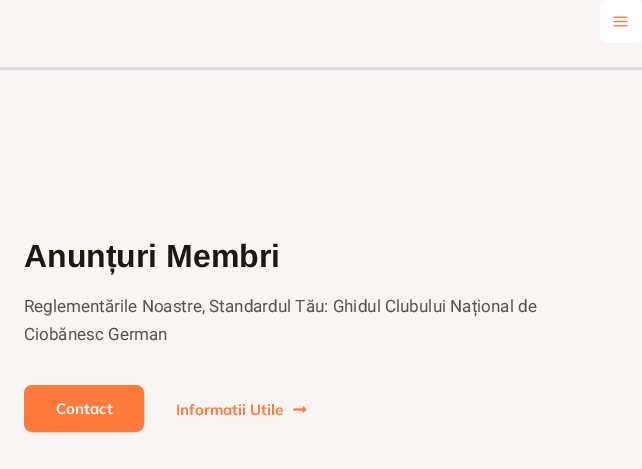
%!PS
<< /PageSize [642 469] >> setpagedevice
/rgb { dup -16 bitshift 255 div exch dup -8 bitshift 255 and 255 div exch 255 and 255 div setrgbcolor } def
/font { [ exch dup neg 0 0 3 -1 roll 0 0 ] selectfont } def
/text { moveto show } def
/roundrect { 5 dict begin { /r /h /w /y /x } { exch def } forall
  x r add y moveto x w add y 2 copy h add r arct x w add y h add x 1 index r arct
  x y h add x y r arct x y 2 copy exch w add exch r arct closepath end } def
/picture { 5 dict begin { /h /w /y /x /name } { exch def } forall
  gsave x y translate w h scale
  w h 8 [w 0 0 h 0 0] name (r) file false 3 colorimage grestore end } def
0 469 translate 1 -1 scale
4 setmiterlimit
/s1 { /LiberationSans-Bold 32 font 16#1E1810 rgb } def
/s2 { /Roboto-Regular 17 font 16#575250 rgb } def
/s3 { /Mulish-ExtraLight 15 font 16#FFFFFF rgb } def
/s4 { /Mulish-ExtraLight 15 font 16#FF7A3D rgb } def
16#F8F5F4 rgb
0 0 642 469 rectfill
16#DDDDDD rgb
0 67 642 3 rectfill
16#FFFFFF rgb
600 0 42 43 5 roundrect fill
(pic1.raw) 613 16 15 11 picture
s1
(Anunțuri Membri) 24 267 text
s2
(Reglementările Noastre, Standardul Tău: Ghidul Clubului Național de) 24 312 text
(Ciobănesc German) 24 340 text
16#FF7A3D rgb
25 386 118 45 7 roundrect gsave fill grestore
2 setlinewidth
stroke
s3
(Contact) 56 414 text
s4
(Informatii Utile) 176 415 text
(pic2.raw) 293 406 14 7 picture
showpage
